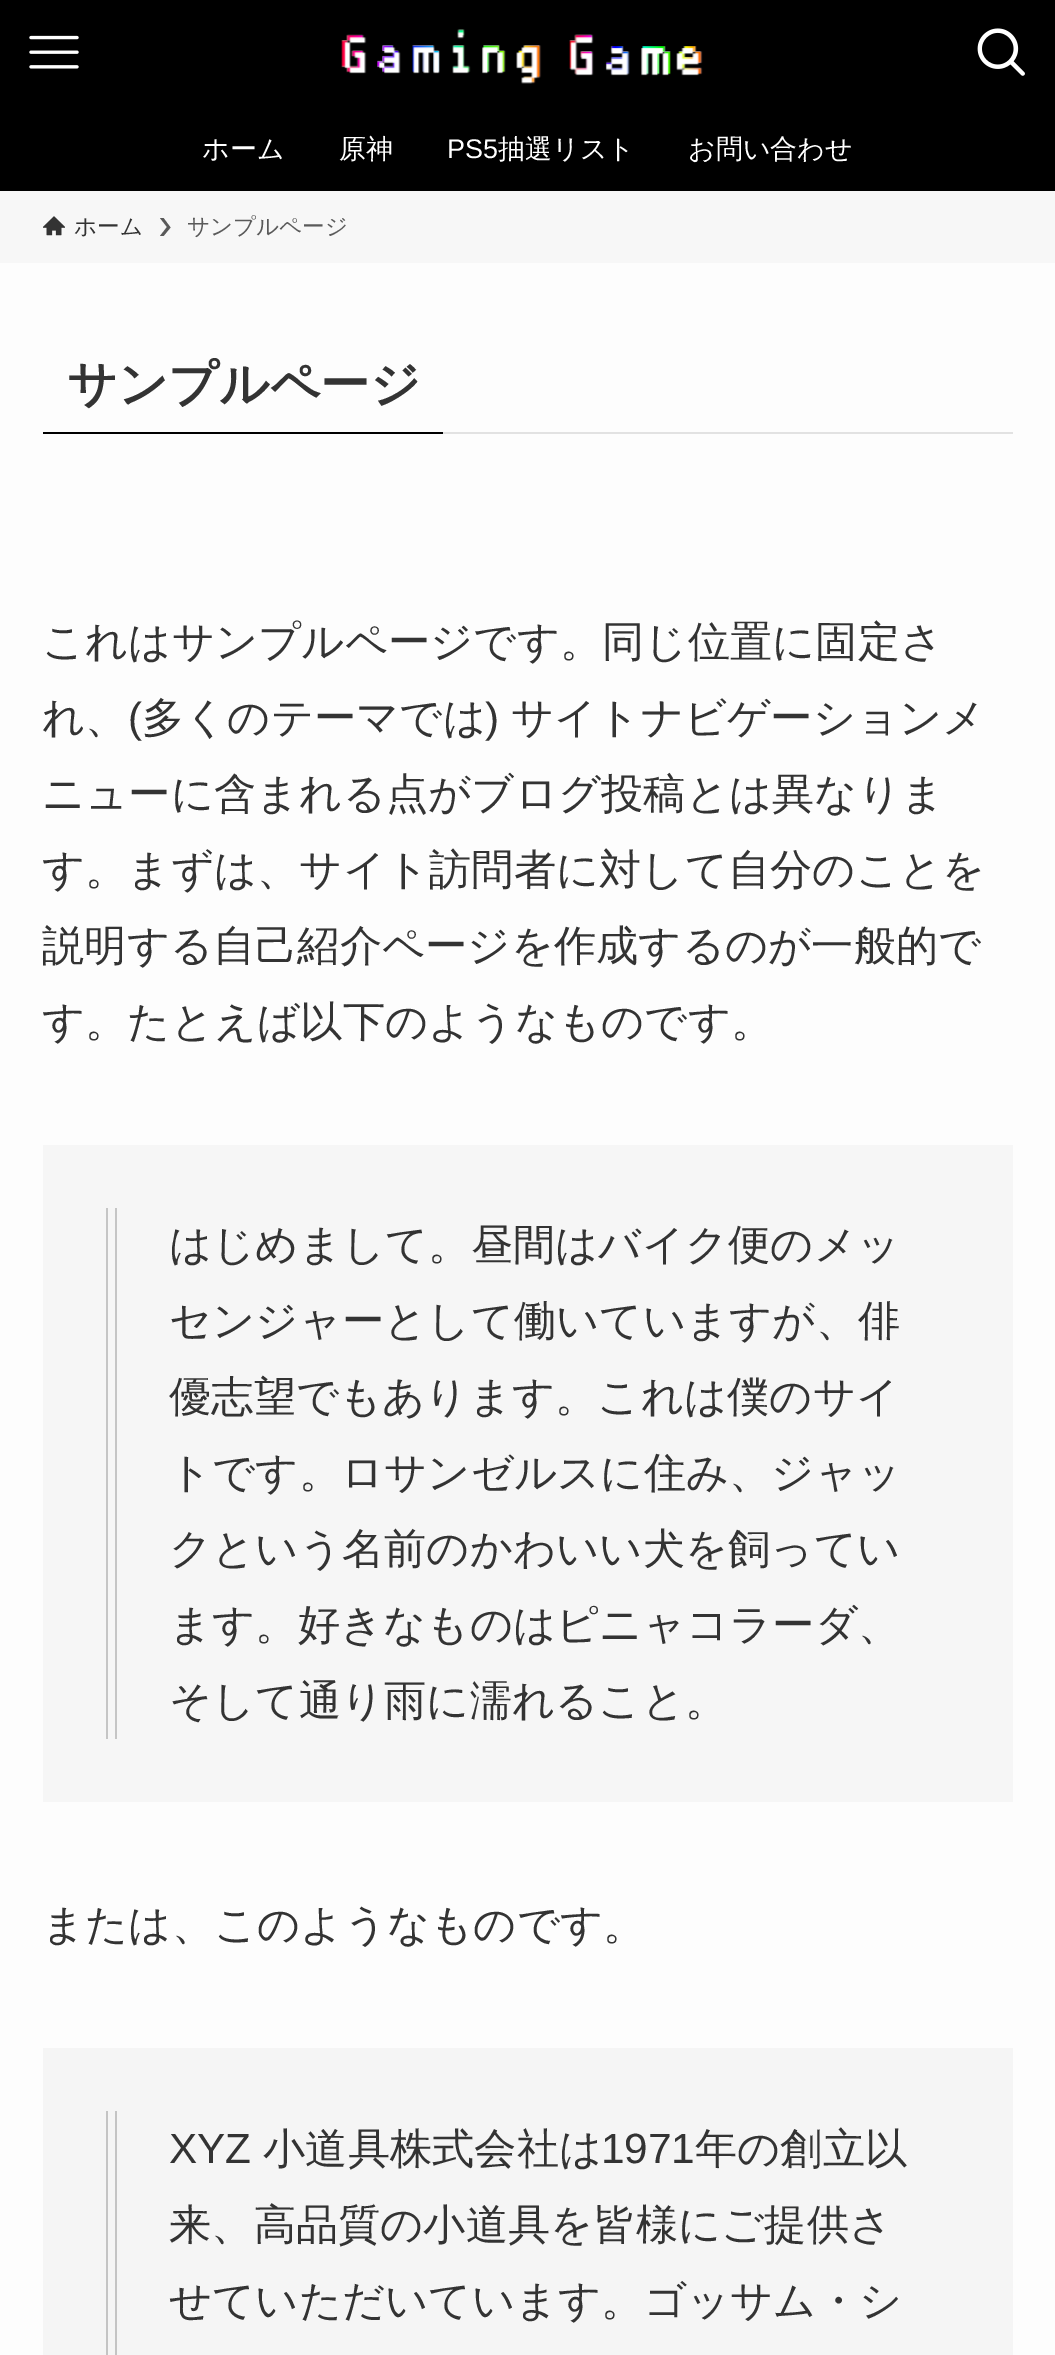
%!PS
<< /PageSize [1055 2355] >> setpagedevice
/rgb { dup -16 bitshift 255 div exch dup -8 bitshift 255 and 255 div exch 255 and 255 div setrgbcolor } def
/font { [ exch dup neg 0 0 3 -1 roll 0 0 ] selectfont } def
/text { moveto show } def
/picture { 5 dict begin { /h /w /y /x /name } { exch def } forall
  gsave x y translate w h scale
  w h 8 [w 0 0 h 0 0] name (r) file false 3 colorimage grestore end } def
0 2355 translate 1 -1 scale
4 setmiterlimit
/s1 { /WenQuanYiZenHei-Medium 27 font 16#FFFFFF rgb } def
/s2 { /LiberationSans-Regular 27 font 16#FFFFFF rgb } def
/s3 { /WenQuanYiZenHei-Medium 22.5 font 16#333333 rgb } def
/s4 { /WenQuanYiZenHei-Medium 22.5 font 16#5A5A5A rgb } def
/s5 { /WenQuanYiZenHei-Bold 49.5 font 16#333333 rgb } def
/s6 { /WenQuanYiZenHei-Medium 42.25 font 16#333333 rgb } def
/s7 { /LiberationSans-Regular 42.25 font 16#333333 rgb } def
16#FDFDFD rgb
0 0 1055 2355 rectfill
16#000000 rgb
0 0 1055 191 rectfill
(pic1.raw) 29 35 50 34 picture
(pic2.raw) 341 29 362 55 picture
(pic3.raw) 977 28 48 48 picture
s1
(ホーム) 202 158 text
(原神) 339 158 text
s2
(PS5) 447 158 text
s1
(抽選リスト) 498 158 text
(お問い合わせ) 688 158 text
16#F7F7F7 rgb
0 191 1055 72 rectfill
(pic4.raw) 43 216 22 20 picture
s3
(ホーム) 74 234 text
16#5A5A5A rgb
163.5 218 moveto 160 218 lineto 167 227 lineto 160 236 lineto 163.5 236 lineto 170.5 227.5 lineto closepath fill
(サンプルページ) 187 234 text
16#E2E2E2 rgb
443 432 570 2 rectfill
16#000000 rgb
43 432 400 2 rectfill
s5
(サンプルページ) 67 401 text
s6
(これはサンプルページです。同じ位置に固定さ) 42 656 text
(れ、) 42 732 text
s7
(\() 128 732 text
s6
(多くのテーマでは) 142 732 text
s7
(\)) 485 732 text
s6
(サイトナビゲーションメ) 511 732 text
(ニューに含まれる点がブログ投稿とは異なりま) 42 808 text
(す。まずは、サイト訪問者に対して自分のことを) 42 884 text
(説明する自己紹介ページを作成するのが一般的で) 42 960 text
(す。たとえば以下のようなものです。) 42 1036 text
16#F6F6F6 rgb
43 1145 970 657 rectfill
16#C5C5C5 rgb
115 1208 2 531 rectfill
106 1208 2 531 rectfill
s6
(はじめまして。昼間はバイク便のメッ) 169 1259 text
(センジャーとして働いていますが、俳) 169 1335 text
(優志望でもあります。これは僕のサイ) 169 1411 text
(トです。ロサンゼルスに住み、ジャッ) 169 1487 text
(クという名前のかわいい犬を飼ってい) 169 1563 text
(ます。好きなものはピニャコラーダ、) 169 1639 text
(そして通り雨に濡れること。) 169 1715 text
(または、このようなものです。) 42 1939 text
16#F5F5F5 rgb
43 2048 970 307 rectfill
16#C4C4C4 rgb
115 2111 2 244 rectfill
106 2111 2 244 rectfill
s7
(XYZ) 169 2163 text
s6
(小道具株式会社は) 263 2163 text
s7
(1971) 601 2163 text
s6
(年の創立以) 695 2163 text
(来、高品質の小道具を皆様にご提供さ) 169 2239 text
(せていただいています。ゴッサム・シ) 169 2315 text
showpage
